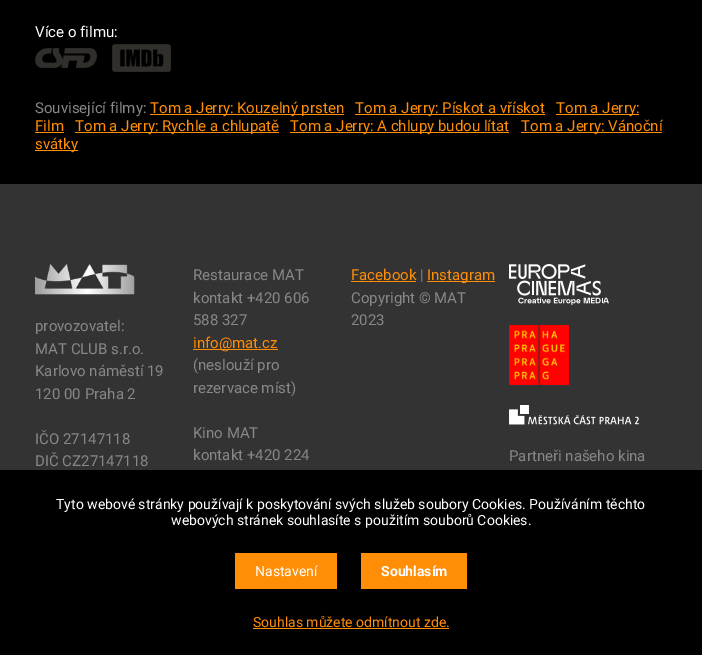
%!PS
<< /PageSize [702 655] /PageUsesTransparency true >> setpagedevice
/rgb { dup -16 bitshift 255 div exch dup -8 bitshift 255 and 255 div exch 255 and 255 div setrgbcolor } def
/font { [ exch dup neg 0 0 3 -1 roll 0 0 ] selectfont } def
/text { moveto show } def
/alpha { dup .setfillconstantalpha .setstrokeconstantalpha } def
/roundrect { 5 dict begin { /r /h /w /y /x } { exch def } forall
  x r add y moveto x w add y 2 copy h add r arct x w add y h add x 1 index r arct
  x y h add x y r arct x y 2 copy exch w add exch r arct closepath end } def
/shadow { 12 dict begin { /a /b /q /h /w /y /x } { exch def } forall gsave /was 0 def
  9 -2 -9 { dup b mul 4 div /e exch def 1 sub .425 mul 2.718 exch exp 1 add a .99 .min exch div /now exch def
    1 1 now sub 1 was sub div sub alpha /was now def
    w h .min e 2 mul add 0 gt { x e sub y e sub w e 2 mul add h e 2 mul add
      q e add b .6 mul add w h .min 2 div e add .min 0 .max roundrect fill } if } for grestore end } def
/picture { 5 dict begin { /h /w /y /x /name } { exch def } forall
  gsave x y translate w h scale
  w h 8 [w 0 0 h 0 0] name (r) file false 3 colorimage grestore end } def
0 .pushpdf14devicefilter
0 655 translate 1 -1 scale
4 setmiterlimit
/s1 { /Roboto-Regular 15 font 16#FFFFFF rgb } def
/s2 { /Roboto-Regular 15 font 16#878787 rgb } def
/s3 { /Roboto-Regular 15 font 16#FF8D06 rgb } def
/s4 { /Roboto-Regular 14 font 16#FFFFFF rgb } def
/s5 { /Roboto-Bold 14 font 16#FFFFFF rgb } def
/s6 { /Roboto-Regular 14 font 16#FF8D06 rgb } def
16#333333 rgb
0 0 702 655 rectfill
16#000000 rgb
0 0 702 184 rectfill
s1
(Více o filmu:) 35 37 text
(pic1.raw) 35 48 62 20 picture
(pic2.raw) 112 44 59 28 picture
s2
(Související filmy:) 35 113 text
16#FF8D06 rgb
150 114 194 1 rectfill
(Tom a Jerry: Kouzelný prsten) 150 113 text
355 114 190 1 rectfill
(Tom a Jerry: Pískot a vřískot) 355 113 text
556 114 83 1 rectfill
(Tom a Jerry:) 556 113 text
(Film) 35 131 text
35 132 29 1 rectfill
75 132 204 1 rectfill
(Tom a Jerry: Rychle a chlupatě) 75 131 text
290 132 219 1 rectfill
(Tom a Jerry: A chlupy budou lítat) 290 131 text
521 132 141 1 rectfill
(Tom a Jerry: Vánoční) 521 131 text
35 150 43 1 rectfill
(svátky) 35 149 text
(pic3.raw) 35 264 100 31 picture
s2
(provozovatel:) 35 331 text
(MAT CLUB s.r.o.) 35 354 text
(Karlovo náměstí 19) 35 376 text
(120 00 Praha 2) 35 399 text
(IČO 27147118) 35 444 text
(DIČ CZ27147118) 35 466 text
(Restaurace MAT) 193 280 text
(kontakt +420 606) 193 303 text
(588 327) 193 325 text
16#FF8D06 rgb
193 349 85 1 rectfill
(info@mat.cz) 193 348 text
s2
(\(neslouží pro) 193 370 text
(rezervace míst\)) 193 393 text
(Kino MAT) 193 438 text
(kontakt +420 224) 193 460 text
s3
(Facebook) 351 280 text
351 281 65 1 rectfill
s2
(|) 420 280 text
16#FF8D06 rgb
427 281 68 1 rectfill
(Instagram) 427 280 text
s2
(Copyright © MAT) 351 303 text
(2023) 351 325 text
(pic4.raw) 509 264 100 41 picture
(pic5.raw) 509 325 60 60 picture
(pic6.raw) 509 405 130 20 picture
(Partneři našeho kina) 509 461 text
16#000000 rgb
0 472 702 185 0 2 0.2 shadow
0 470 702 185 rectfill
s4
(Tyto webové stránky používají k poskytování svých služeb soubory Cookies. Používáním těchto) 56 509 text
(webových stránek souhlasíte s použitím souborů Cookies.) 171 525 text
16#FF8D06 rgb
235 553 102 36 rectfill
s4
(Nastavení) 255 576 text
16#FF8D06 rgb
361 553 106 36 rectfill
s5
(Souhlasím) 381 576 text
s6
(Souhlas můžete odmítnout zde.) 253 627 text
253 628 196 1 rectfill
.poppdf14devicefilter showpage
